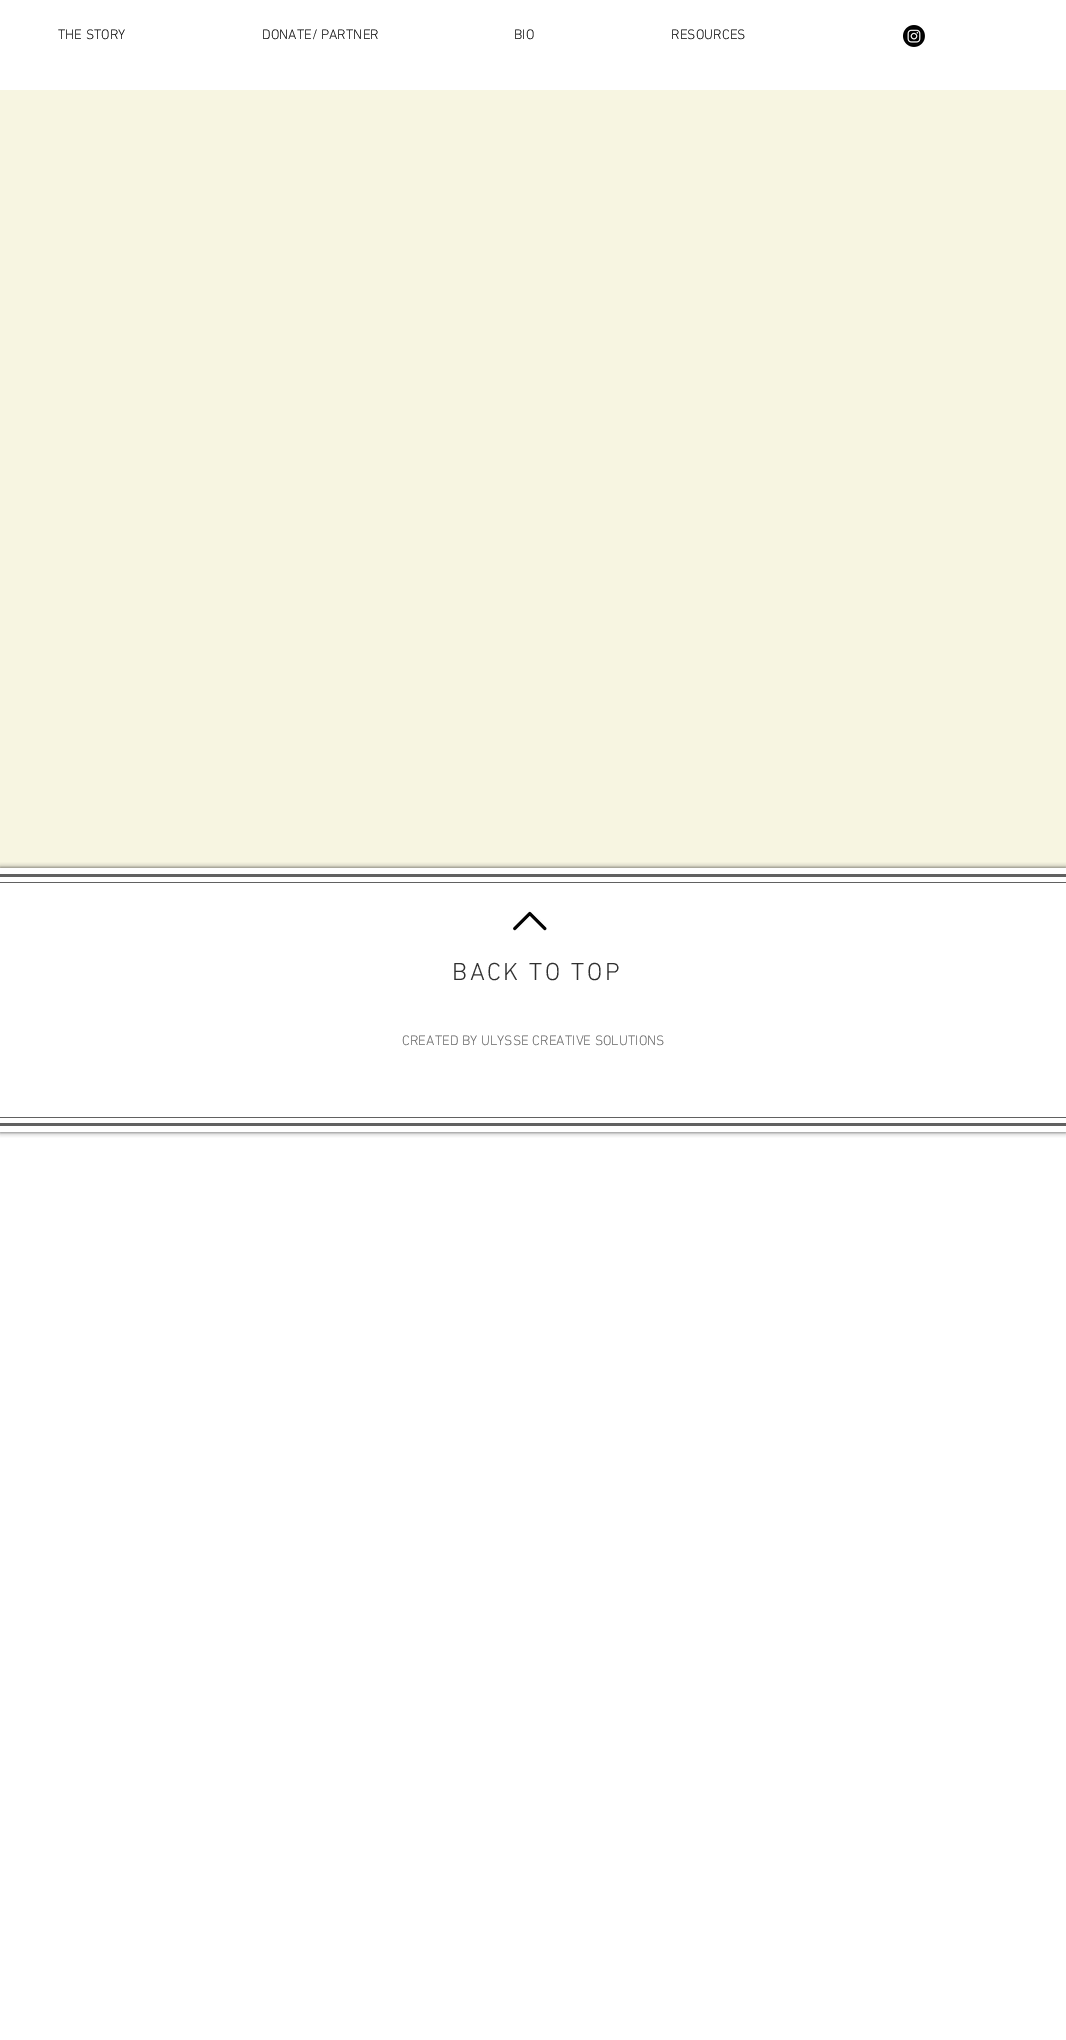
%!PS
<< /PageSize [1066 2040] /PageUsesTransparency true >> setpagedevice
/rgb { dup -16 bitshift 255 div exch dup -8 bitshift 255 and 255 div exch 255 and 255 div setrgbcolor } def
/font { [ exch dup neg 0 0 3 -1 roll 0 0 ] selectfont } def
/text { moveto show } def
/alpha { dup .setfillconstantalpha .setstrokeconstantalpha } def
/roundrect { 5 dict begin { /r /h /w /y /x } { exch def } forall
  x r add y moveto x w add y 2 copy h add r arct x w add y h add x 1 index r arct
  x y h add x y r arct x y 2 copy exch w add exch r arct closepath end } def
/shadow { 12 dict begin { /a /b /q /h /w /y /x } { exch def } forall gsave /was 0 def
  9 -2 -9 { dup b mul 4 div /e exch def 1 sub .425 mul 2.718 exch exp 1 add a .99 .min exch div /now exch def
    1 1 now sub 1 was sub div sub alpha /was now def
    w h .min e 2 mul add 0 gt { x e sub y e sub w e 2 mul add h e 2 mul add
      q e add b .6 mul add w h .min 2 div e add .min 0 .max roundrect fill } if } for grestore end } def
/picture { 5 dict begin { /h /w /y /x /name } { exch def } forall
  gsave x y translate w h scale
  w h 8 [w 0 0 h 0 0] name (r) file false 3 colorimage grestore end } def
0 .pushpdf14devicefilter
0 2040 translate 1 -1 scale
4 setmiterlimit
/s1 { /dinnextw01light-Light 14 font 16#000000 rgb } def
/s2 { /dinnextw01light-Light 14 font 16#616161 rgb } def
16#FFFFFF rgb
0 0 1066 2040 rectfill
s1
(THE STORY) 58 39 text
(DONATE/ PARTNER) 262 39 text
(BIO) 514 39 text
(RESOURCES) 671 39 text
(pic1.raw) 903 25 22 22 picture
16#F7F5E1 rgb
0 90 1066 778 rectfill
gsave
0 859 moveto 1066 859 lineto 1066 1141 lineto 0 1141 lineto closepath 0 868 moveto 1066 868 lineto 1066 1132 lineto 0 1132 lineto closepath eoclip newpath
16#000000 rgb
0 868 1066 264 0 2.5 0.7 shadow
grestore
16#616161 rgb
0 874 1066 3 rectfill
0 1123 1066 3 rectfill
0 882 1066 1 rectfill
0 1117 1066 1 rectfill
(pic2.raw) 513 911 34 20 picture
/dinnextw01light-Light 25 font
16#303030 rgb
452 980 moveto 2.5 0 (BACK TO TOP) ashow
s2
(CREATED BY ULYSSE CREATIVE SOLUTIONS) 402 1045 text
.poppdf14devicefilter showpage
